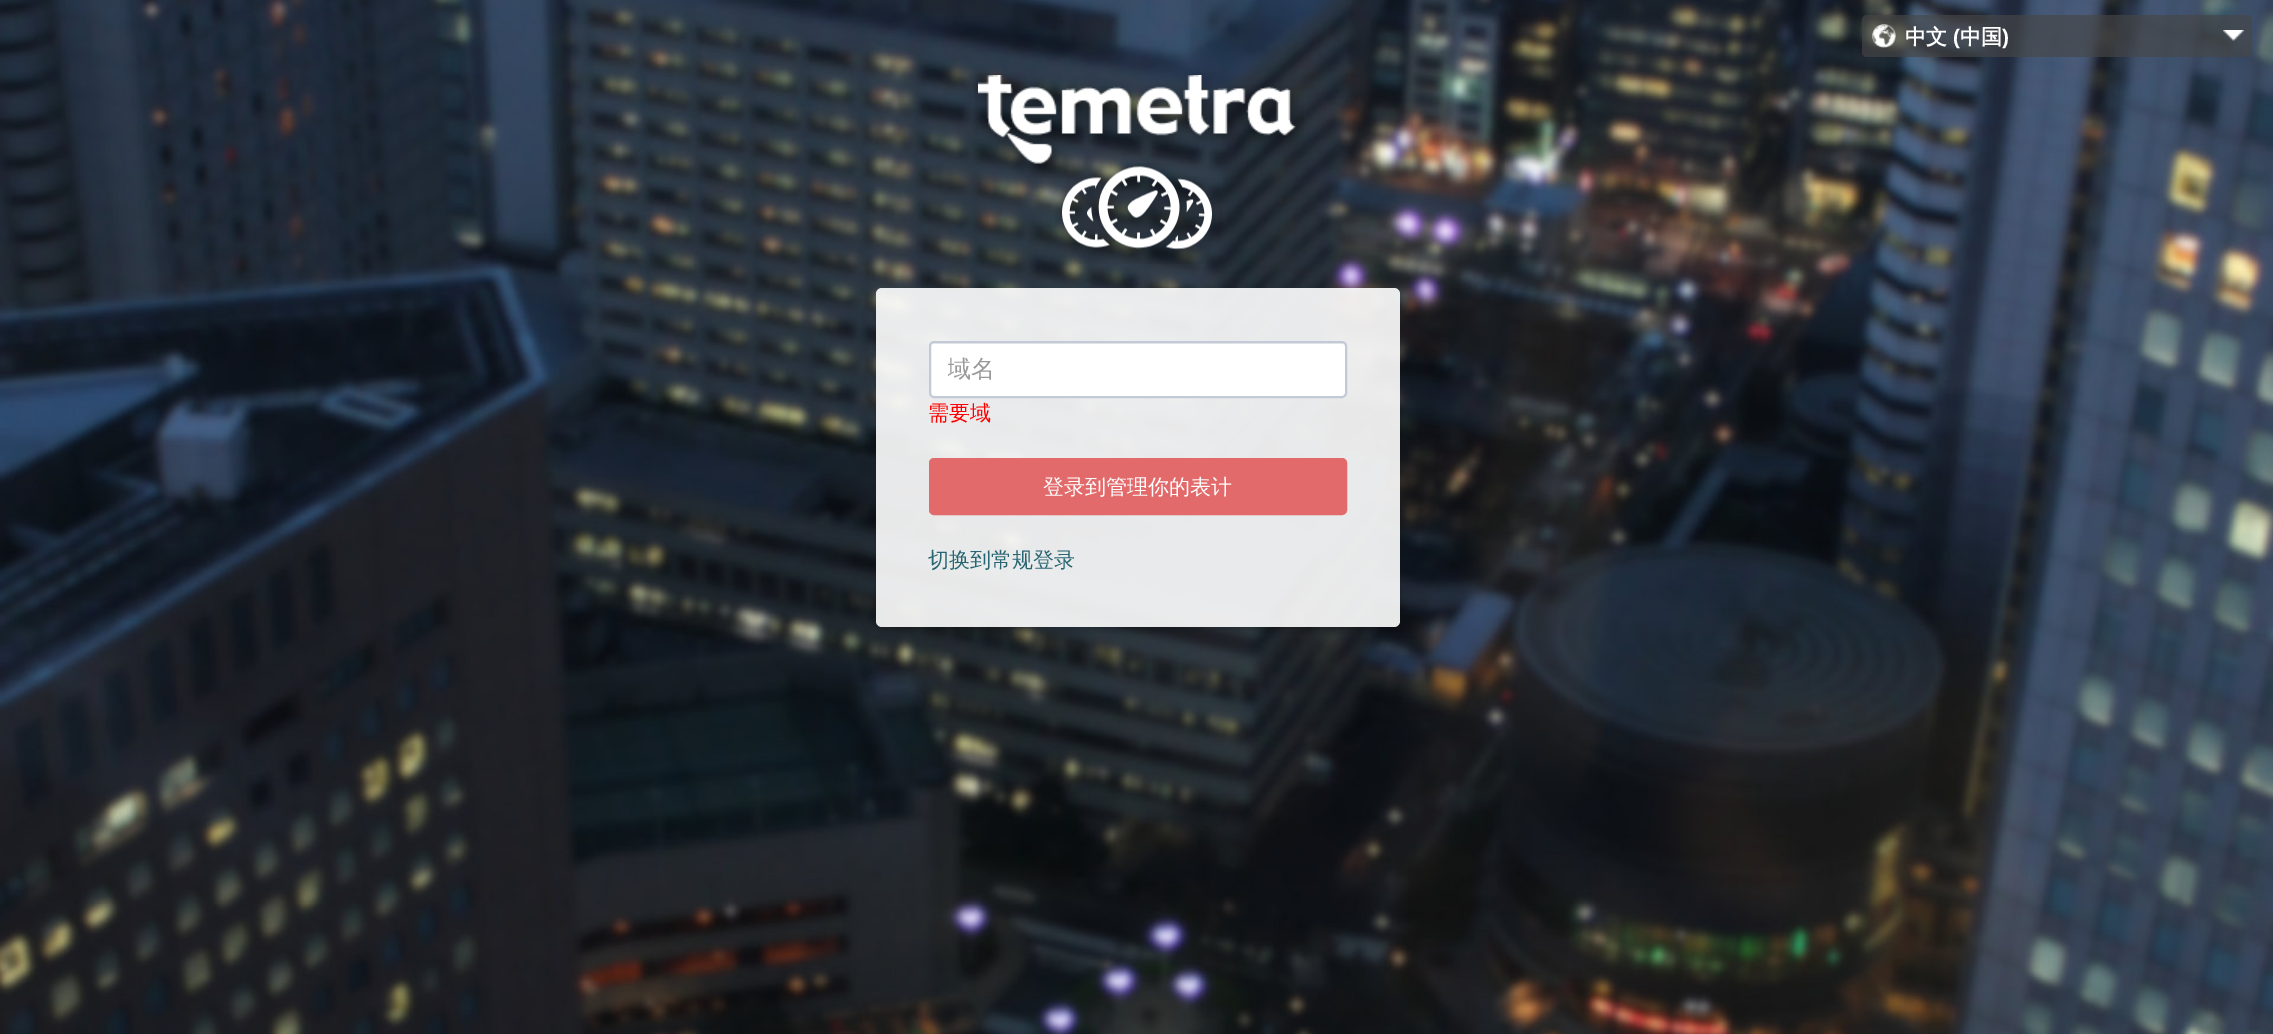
%!PS
<< /PageSize [2273 1034] /PageUsesTransparency true >> setpagedevice
/rgb { dup -16 bitshift 255 div exch dup -8 bitshift 255 and 255 div exch 255 and 255 div setrgbcolor } def
/font { [ exch dup neg 0 0 3 -1 roll 0 0 ] selectfont } def
/text { moveto show } def
/alpha { dup .setfillconstantalpha .setstrokeconstantalpha } def
/roundrect { 5 dict begin { /r /h /w /y /x } { exch def } forall
  x r add y moveto x w add y 2 copy h add r arct x w add y h add x 1 index r arct
  x y h add x y r arct x y 2 copy exch w add exch r arct closepath end } def
/shadow { 12 dict begin { /a /b /q /h /w /y /x } { exch def } forall gsave /was 0 def
  9 -2 -9 { dup b mul 4 div /e exch def 1 sub .425 mul 2.718 exch exp 1 add a .99 .min exch div /now exch def
    1 1 now sub 1 was sub div sub alpha /was now def
    w h .min e 2 mul add 0 gt { x e sub y e sub w e 2 mul add h e 2 mul add
      q e add b .6 mul add w h .min 2 div e add .min 0 .max roundrect fill } if } for grestore end } def
/picture { 5 dict begin { /h /w /y /x /name } { exch def } forall
  gsave x y translate w h scale
  w h 8 [w 0 0 h 0 0] name (r) file false 3 colorimage grestore end } def
0 .pushpdf14devicefilter
0 1034 translate 1 -1 scale
4 setmiterlimit
/s1 { /WenQuanYiZenHei-Bold 21 font 16#FFFFFF rgb } def
/s2 { /LiberationSans-Bold 21 font 16#FFFFFF rgb } def
/s3 { /WenQuanYiZenHei-Medium 24 font 16#999999 rgb } def
/s4 { /WenQuanYiZenHei-Medium 21 font 16#FF0000 rgb } def
/s5 { /WenQuanYiZenHei-Medium 21 font 16#FFFFFF rgb } def
/s6 { /WenQuanYiZenHei-Medium 21 font 16#286572 rgb } def
16#FFFFFF rgb
0 0 2273 1034 rectfill
(pic3.raw) 0 0 2273 1034 picture
0.65 alpha
16#464646 rgb
1862 15 390 42 5 roundrect fill
1 alpha
(pic1.raw) 1872 24 24 24 picture
s1
(中文) 1905 44 text
s2
(\() 1953 44 text
s1
(中国) 1960 44 text
s2
(\)) 2002 44 text
(pic2.raw) 2223 30 21 11 picture
(pic4.raw) 974 73 330 105 picture
(pic5.raw) 1055 163 168 101 picture
gsave
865 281 moveto 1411 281 lineto 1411 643 lineto 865 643 lineto closepath 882 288 moveto 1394 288 lineto 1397.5 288 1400 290.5 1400 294 curveto 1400 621 lineto 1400 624.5 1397.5 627 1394 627 curveto 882 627 lineto 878.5 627 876 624.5 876 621 curveto 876 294 lineto 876 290.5 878.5 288 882 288 curveto closepath eoclip newpath
16#000000 rgb
878 294 520 336 5 4 0.2 shadow
grestore
0.9 alpha
876 288 524 339 6 roundrect fill
1 alpha
929 341 418 57 5 roundrect fill
16#ECECEC rgb
933 344 moveto 1342 344 lineto 1344 344 1346 345 1346 346 curveto 1346 344 1345 342 1343 342 curveto 933 342 lineto 931 342 930 344 930 346 curveto 930 345 931 344 933 344 curveto closepath fill
16#C2CAD8 rgb
2 setlinewidth
930 342 416 55 4 roundrect stroke
gsave
948 354 380 32 rectclip
s3
(域名) 947 377 text
grestore
s4
(需要域) 928 420 text
16#E26A6A rgb
930 459 416 55 4 roundrect gsave fill grestore
stroke
s5
(登录到管理你的表计) 1043 494 text
s6
(切换到常规登录) 928 567 text
.poppdf14devicefilter showpage
